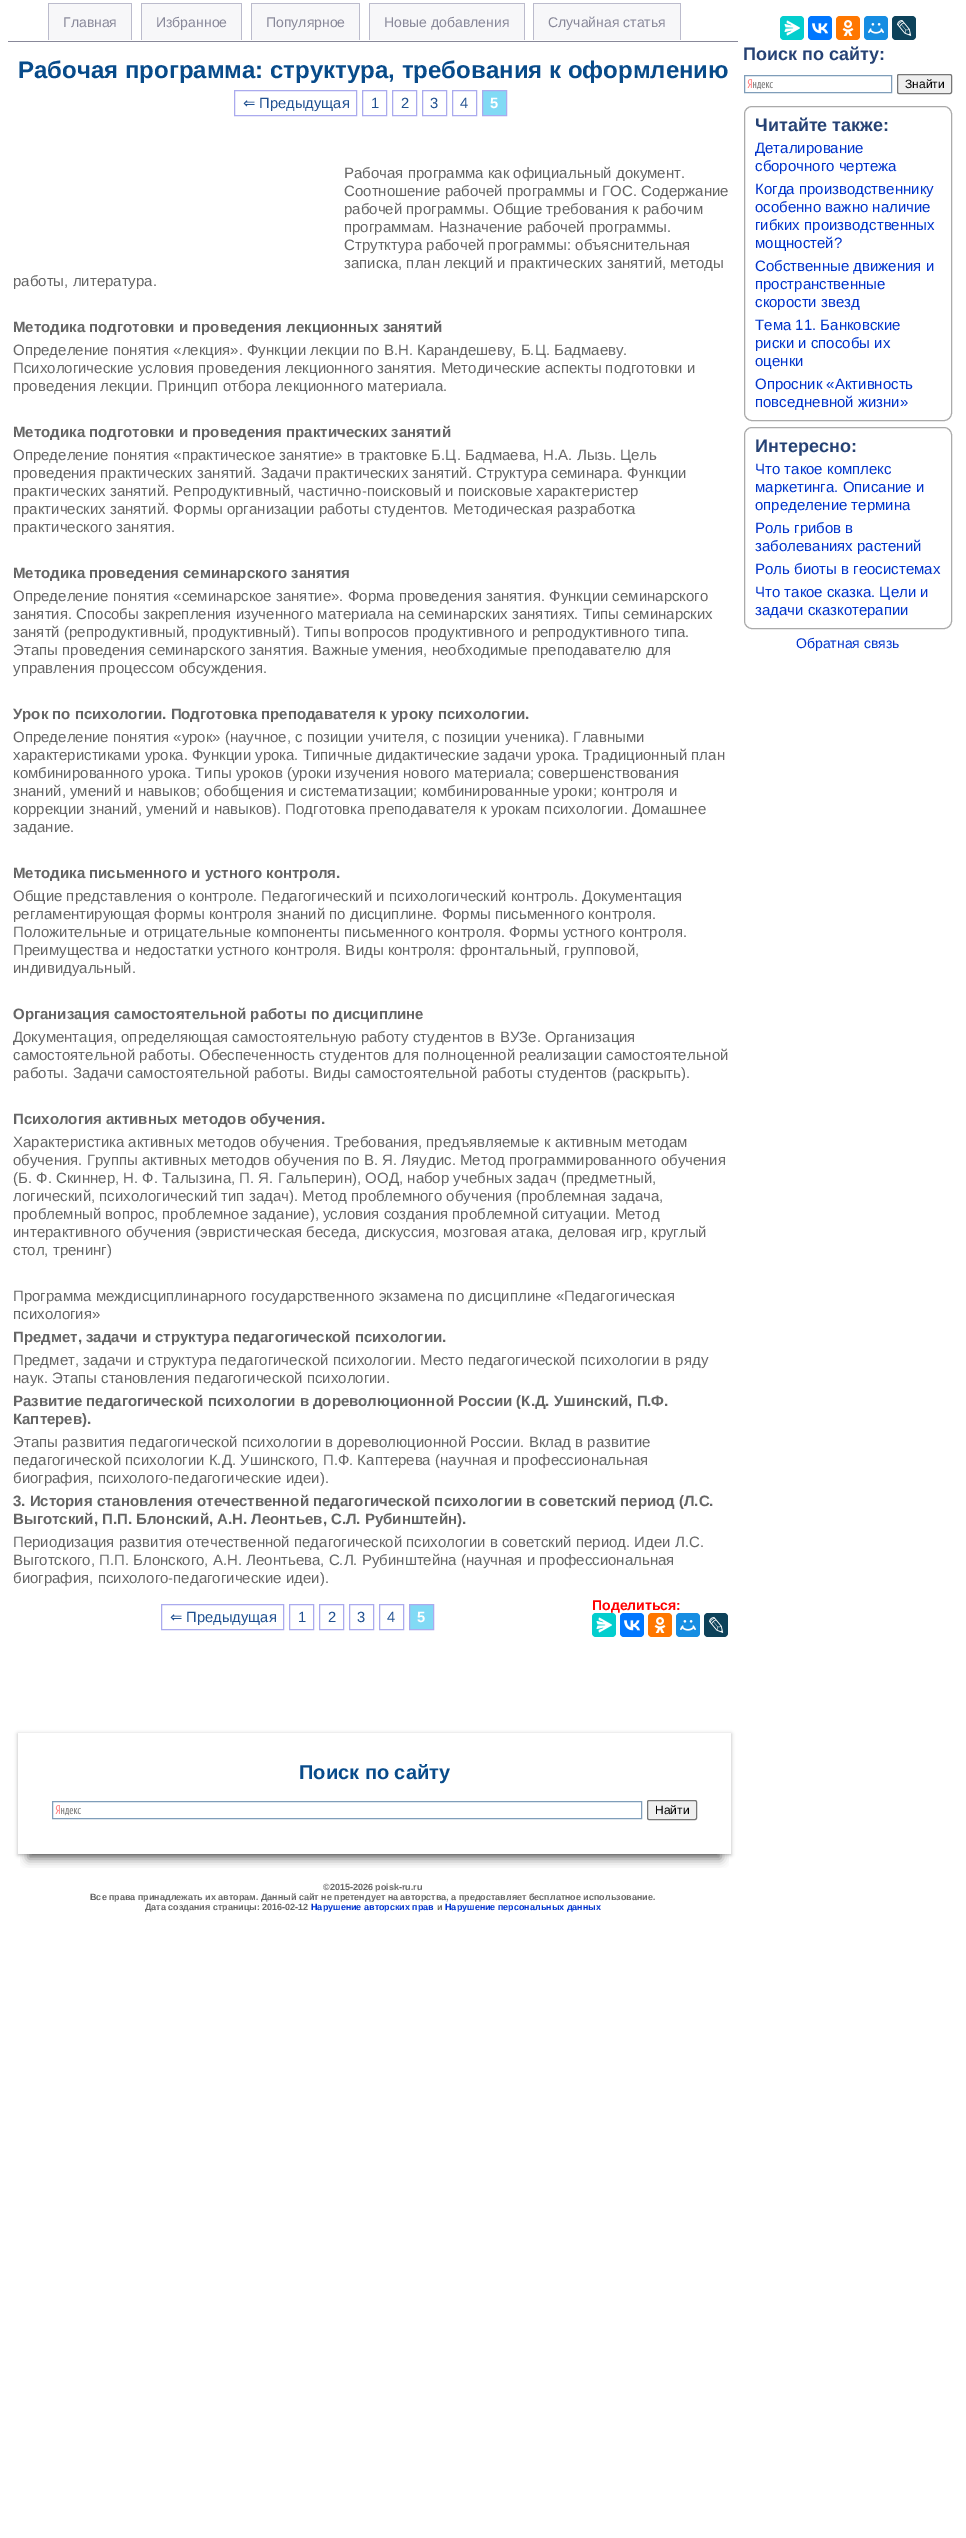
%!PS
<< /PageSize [966 2538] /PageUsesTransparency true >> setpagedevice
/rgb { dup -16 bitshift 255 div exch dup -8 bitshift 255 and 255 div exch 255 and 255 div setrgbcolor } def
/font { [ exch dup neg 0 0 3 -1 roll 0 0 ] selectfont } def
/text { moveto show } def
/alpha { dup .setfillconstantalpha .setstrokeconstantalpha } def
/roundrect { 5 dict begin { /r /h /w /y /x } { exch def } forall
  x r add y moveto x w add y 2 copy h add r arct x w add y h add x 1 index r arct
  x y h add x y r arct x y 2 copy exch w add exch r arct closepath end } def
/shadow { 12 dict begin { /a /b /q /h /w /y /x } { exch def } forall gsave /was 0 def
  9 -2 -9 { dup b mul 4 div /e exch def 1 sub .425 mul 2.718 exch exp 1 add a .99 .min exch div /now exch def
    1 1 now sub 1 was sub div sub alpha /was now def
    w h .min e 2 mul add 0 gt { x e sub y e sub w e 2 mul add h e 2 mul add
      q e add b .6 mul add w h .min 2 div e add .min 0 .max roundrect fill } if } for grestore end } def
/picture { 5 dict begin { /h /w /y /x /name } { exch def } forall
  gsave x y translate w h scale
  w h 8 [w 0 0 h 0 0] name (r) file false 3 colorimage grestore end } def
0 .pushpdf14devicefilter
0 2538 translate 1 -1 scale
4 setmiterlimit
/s1 { /LiberationSans-Regular 14 font 16#888899 rgb } def
/s2 { /LiberationSans-Bold 24 font 16#084B8A rgb } def
/s3 { /DejaVuSans-Regular 14.75 font 16#205090 rgb } def
/s4 { /LiberationSans-Regular 14.75 font 16#205090 rgb } def
/s5 { /LiberationSans-Bold 14.75 font 16#FFFFFF rgb } def
/s6 { /LiberationSans-Regular 15 font 16#666666 rgb } def
/s7 { /LiberationSans-Bold 15 font 16#666666 rgb } def
/s8 { /LiberationSans-Bold 14 font 16#FF0000 rgb } def
/s9 { /LiberationSans-Bold 20 font 16#084B8A rgb } def
/s10 { /LiberationSans-Regular 12 font 16#000000 rgb } def
/s11 { /LiberationSans-Bold 9 font 16#666666 rgb } def
/s12 { /LiberationSans-Bold 9 font 16#0033CC rgb } def
/s13 { /LiberationSans-Bold 18 font 16#264274 rgb } def
/s14 { /LiberationSans-Regular 15 font 16#0033CC rgb } def
/s15 { /LiberationSans-Regular 14 font 16#0033CC rgb } def
16#FFFFFF rgb
0 0 966 2538 rectfill
16#888899 rgb
8 41 730 1 rectfill
16#F7F7F9 rgb
49 4 82 36 rectfill
s1
(Главная) 63 27 text
16#BBBBCC rgb
48 3 84 1 rectfill
131 3 1 37 rectfill
48 3 1 37 rectfill
16#F7F7F9 rgb
142 4 99 36 rectfill
s1
(Избранное) 156 27 text
16#BBBBCC rgb
141 3 101 1 rectfill
241 3 1 37 rectfill
141 3 1 37 rectfill
16#F7F7F9 rgb
252 4 107 36 rectfill
s1
(Популярное) 266 27 text
16#BBBBCC rgb
251 3 109 1 rectfill
359 3 1 37 rectfill
251 3 1 37 rectfill
16#F7F7F9 rgb
370 4 154 36 rectfill
s1
(Новые добавления) 384 27 text
16#BBBBCC rgb
369 3 156 1 rectfill
524 3 1 37 rectfill
369 3 1 37 rectfill
16#F7F7F9 rgb
534 4 146 36 rectfill
s1
(Случайная статья) 548 27 text
16#BBBBCC rgb
533 3 148 1 rectfill
680 3 1 37 rectfill
533 3 1 37 rectfill
s2
(Рабочая программа: структура, требования к оформлению) 18 78 text
16#AAAAEE rgb
234.5 90.5 122 25 rectstroke
s3
(⇐) 243 108 text
s4
(Предыдущая) 259 108 text
16#AAAAEE rgb
362.5 90.5 24 25 rectstroke
s4
(1) 371 108 text
16#AAAAEE rgb
392.5 90.5 24 25 rectstroke
s4
(2) 401 108 text
16#AAAAEE rgb
422.5 90.5 24 25 rectstroke
s4
(3) 430 108 text
16#AAAAEE rgb
452.5 90.5 24 25 rectstroke
s4
(4) 460 108 text
16#81DAF5 rgb
482.5 90.5 moveto 506.5 90.5 lineto 506.5 115.5 lineto 482.5 115.5 lineto closepath gsave fill grestore
16#AAAAEE rgb
stroke
s5
(5) 490 108 text
s6
(Рабочая программа как официальный документ.) 344 178 text
(Соотношение рабочей программы и ГОС. Содержание) 344 196 text
(рабочей программы. Общие требования к рабочим) 344 214 text
(программам. Назначение рабочей программы.) 344 232 text
(Струтктура рабочей программы: объяснительная) 344 250 text
(записка, план лекций и практических занятий, методы) 344 268 text
(работы, литература.) 13 286 text
s7
(Методика подготовки и проведения лекционных занятий) 13 332 text
s6
(Определение понятия «лекция». Функции лекции по В.Н. Карандешеву, Б.Ц. Бадмаеву.) 13 355 text
(Психологические условия проведения лекционного занятия. Методические аспекты подготовки и) 13 373 text
(проведения лекции. Принцип отбора лекционного материала.) 13 391 text
s7
(Методика подготовки и проведения практических занятий) 13 437 text
s6
(Определение понятия «практическое занятие» в трактовке Б.Ц. Бадмаева, Н.А. Лызь. Цель) 13 460 text
(проведения практических занятий. Задачи практических занятий. Структура семинара. Функции) 13 478 text
(практических занятий. Репродуктивный, частично-поисковый и поисковые характеристер) 13 496 text
(практических занятий. Формы организации работы студентов. Методическая разработка) 13 514 text
(практического занятия.) 13 532 text
s7
(Методика проведения семинарского занятия) 13 578 text
s6
(Определение понятия «семинарское занятие». Форма проведения занятия. Функции семинарского) 13 601 text
(занятия. Способы закрепления изученного материала на семинарских занятиях. Типы семинарских) 13 619 text
(занятй \(репродуктивный, продуктивный\). Типы вопросов продуктивного и репродуктивного типа.) 13 637 text
(Этапы проведения семинарского занятия. Важные умения, необходимые преподавателю для) 13 655 text
(управления процессом обсуждения.) 13 673 text
s7
(Урок по психологии. Подготовка преподавателя к уроку психологии.) 13 719 text
s6
(Определение понятия «урок» \(научное, с позиции учителя, с позиции ученика\). Главными) 13 742 text
(характеристиками урока. Функции урока. Типичные дидактические задачи урока. Традиционный план) 13 760 text
(комбинированного урока. Типы уроков \(уроки изучения нового материала; совершенствования) 13 778 text
(знаний, умений и навыков; обобщения и систематизации; комбинированные уроки; контроля и) 13 796 text
(коррекции знаний, умений и навыков\). Подготовка преподавателя к урокам психологии. Домашнее) 13 814 text
(задание.) 13 832 text
s7
(Методика письменного и устного контроля.) 13 878 text
s6
(Общие представления о контроле. Педагогический и психологический контроль. Документация) 13 901 text
(регламентирующая формы контроля знаний по дисциплине. Формы письменного контроля.) 13 919 text
(Положительные и отрицательные компоненты письменного контроля. Формы устного контроля.) 13 937 text
(Преимущества и недостатки устного контроля. Виды контроля: фронтальный, групповой,) 13 955 text
(индивидуальный.) 13 973 text
s7
(Организация самостоятельной работы по дисциплине) 13 1019 text
s6
(Документация, определяющая самостоятельную работу студентов в ВУЗе. Организация) 13 1042 text
(самостоятельной работы. Обеспеченность студентов для полноценной реализации самостоятельной) 13 1060 text
(работы. Задачи самостоятельной работы. Виды самостоятельной работы студентов \(раскрыть\).) 13 1078 text
s7
(Психология активных методов обучения.) 13 1124 text
s6
(Характеристика активных методов обучения. Требования, предъявляемые к активным методам) 13 1147 text
(обучения. Группы активных методов обучения по В. Я. Ляудис. Метод программированного обучения) 13 1165 text
(\(Б. Ф. Скиннер, Н. Ф. Талызина, П. Я. Гальперин\), ООД, набор учебных задач \(предметный,) 13 1183 text
(логический, психологический тип задач\). Метод проблемного обучения \(проблемная задача,) 13 1201 text
(проблемный вопрос, проблемное задание\), условия создания проблемной ситуации. Метод) 13 1219 text
(интерактивного обучения \(эвристическая беседа, дискуссия, мозговая атака, деловая игр, круглый) 13 1237 text
(стол, тренинг\)) 13 1255 text
(Программа междисциплинарного государственного экзамена по дисциплине «Педагогическая) 13 1301 text
(психология») 13 1319 text
s7
(Предмет, задачи и структура педагогической психологии.) 13 1342 text
s6
(Предмет, задачи и структура педагогической психологии. Место педагогической психологии в ряду) 13 1365 text
(наук. Этапы становления педагогической психологии.) 13 1383 text
s7
(Развитие педагогической психологии в дореволюционной России \(К.Д. Ушинский, П.Ф.) 13 1406 text
(Каптерев\).) 13 1424 text
s6
(Этапы развития педагогической психологии в дореволюционной России. Вклад в развитие) 13 1447 text
(педагогической психологии К.Д. Ушинского, П.Ф. Каптерева \(научная и профессиональная) 13 1465 text
(биография, психолого-педагогические идеи\).) 13 1483 text
s7
(3. История становления отечественной педагогической психологии в советский период \(Л.С.) 13 1506 text
(Выготский, П.П. Блонский, А.Н. Леонтьев, С.Л. Рубинштейн\).) 13 1524 text
s6
(Периодизация развития отечественной педагогической психологии в советский период. Идеи Л.С.) 13 1547 text
(Выготского, П.П. Блонского, А.Н. Леонтьева, С.Л. Рубинштейна \(научная и профессиональная) 13 1565 text
(биография, психолого-педагогические идеи\).) 13 1583 text
s8
(Поделиться:) 592 1610 text
16#03CECE rgb
592 1613 24 24 4 roundrect fill
(pic1.raw) 596 1617 16 16 picture
16#0077FF rgb
620 1613 24 24 4 roundrect fill
(pic2.raw) 624 1620 16 11 picture
16#FF7700 rgb
648 1613 24 24 4 roundrect fill
(pic3.raw) 654 1617 12 16 picture
16#168DE2 rgb
676 1613 24 24 4 roundrect fill
(pic4.raw) 680 1620 16 11 picture
16#0D425A rgb
704 1613 24 24 4 roundrect fill
(pic5.raw) 709 1617 15 16 picture
16#AAAAEE rgb
161.5 1604.5 122 25 rectstroke
s3
(⇐) 170 1622 text
s4
(Предыдущая) 186 1622 text
16#AAAAEE rgb
289.5 1604.5 24 25 rectstroke
s4
(1) 298 1622 text
16#AAAAEE rgb
319.5 1604.5 24 25 rectstroke
s4
(2) 328 1622 text
16#AAAAEE rgb
349.5 1604.5 24 25 rectstroke
s4
(3) 357 1622 text
16#AAAAEE rgb
379.5 1604.5 24 25 rectstroke
s4
(4) 387 1622 text
16#81DAF5 rgb
409.5 1604.5 moveto 433.5 1604.5 lineto 433.5 1629.5 lineto 409.5 1629.5 lineto closepath gsave fill grestore
16#AAAAEE rgb
stroke
s5
(5) 417 1622 text
gsave
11 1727 moveto 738 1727 lineto 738 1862 lineto 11 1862 lineto closepath 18 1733 moveto 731 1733 lineto 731 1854 lineto 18 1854 lineto closepath eoclip newpath
16#000000 rgb
18 1734 713 121 0 2 0.3 shadow
grestore
gsave
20 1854 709 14 rectclip
16#000000 rgb
28 1758 693 101 0 5 0.5 shadow
grestore
s9
(Поиск по сайту) 299 1779 text
(pic6.raw) 55 1805 26 11 picture
16#7F9DB9 rgb
52.5 1801.5 589 17 rectstroke
16#EFEFEF rgb
647.5 1800.5 49 19 1.5 roundrect gsave fill grestore
16#767676 rgb
stroke
s10
(Найти) 655 1814 text
s11
(©2015-2026 poisk-ru.ru) 323 1890 text
(Все права принадлежать их авторам. Данный сайт не претендует на авторства, а предоставляет бесплатное использование.) 90 1900 text
(Дата создания страницы: 2016-02-12) 145 1910 text
s12
(Нарушение авторских прав) 311 1910 text
s11
(и) 437 1910 text
s12
(Нарушение персональных данных) 445 1910 text
16#03CECE rgb
780 16 24 24 4 roundrect fill
(pic1.raw) 784 20 16 16 picture
16#0077FF rgb
808 16 24 24 4 roundrect fill
(pic2.raw) 812 23 16 11 picture
16#FF7700 rgb
836 16 24 24 4 roundrect fill
(pic3.raw) 842 20 12 16 picture
16#168DE2 rgb
864 16 24 24 4 roundrect fill
(pic4.raw) 868 23 16 11 picture
16#0D425A rgb
892 16 24 24 4 roundrect fill
(pic5.raw) 897 20 15 16 picture
s13
(Поиск по сайту:) 743 60 text
(pic6.raw) 747 79 26 11 picture
16#7F9DB9 rgb
744.5 75.5 147 17 rectstroke
16#EFEFEF rgb
897.5 74.5 54 19 1.5 roundrect gsave fill grestore
16#767676 rgb
stroke
s10
(Знайти) 905 88 text
16#AAAAAA rgb
744.5 106.5 207 314 7.5 roundrect stroke
s13
(Читайте также:) 755 131 text
s14
(Деталирование) 755 153 text
(сборочного чертежа) 755 171 text
(Когда производственнику) 755 194 text
(особенно важно наличие) 755 212 text
(гибких производственных) 755 230 text
(мощностей?) 755 248 text
(Собственные движения и) 755 271 text
(пространственные) 755 289 text
(скорости звезд) 755 307 text
(Тема 11. Банковские) 755 330 text
(риски и способы их) 755 348 text
(оценки) 755 366 text
(Опросник «Активность) 755 389 text
(повседневной жизни») 755 407 text
16#AAAAAA rgb
744.5 427.5 207 201 7.5 roundrect stroke
s13
(Интересно:) 755 452 text
s14
(Что такое комплекс) 755 474 text
(маркетинга. Описание и) 755 492 text
(определение термина) 755 510 text
(Роль грибов в) 755 533 text
(заболеваниях растений) 755 551 text
(Роль биоты в геосистемах) 755 574 text
(Что такое сказка. Цели и) 755 597 text
(задачи сказкотерапии) 755 615 text
s15
(Обратная связь) 796 648 text
.poppdf14devicefilter showpage
